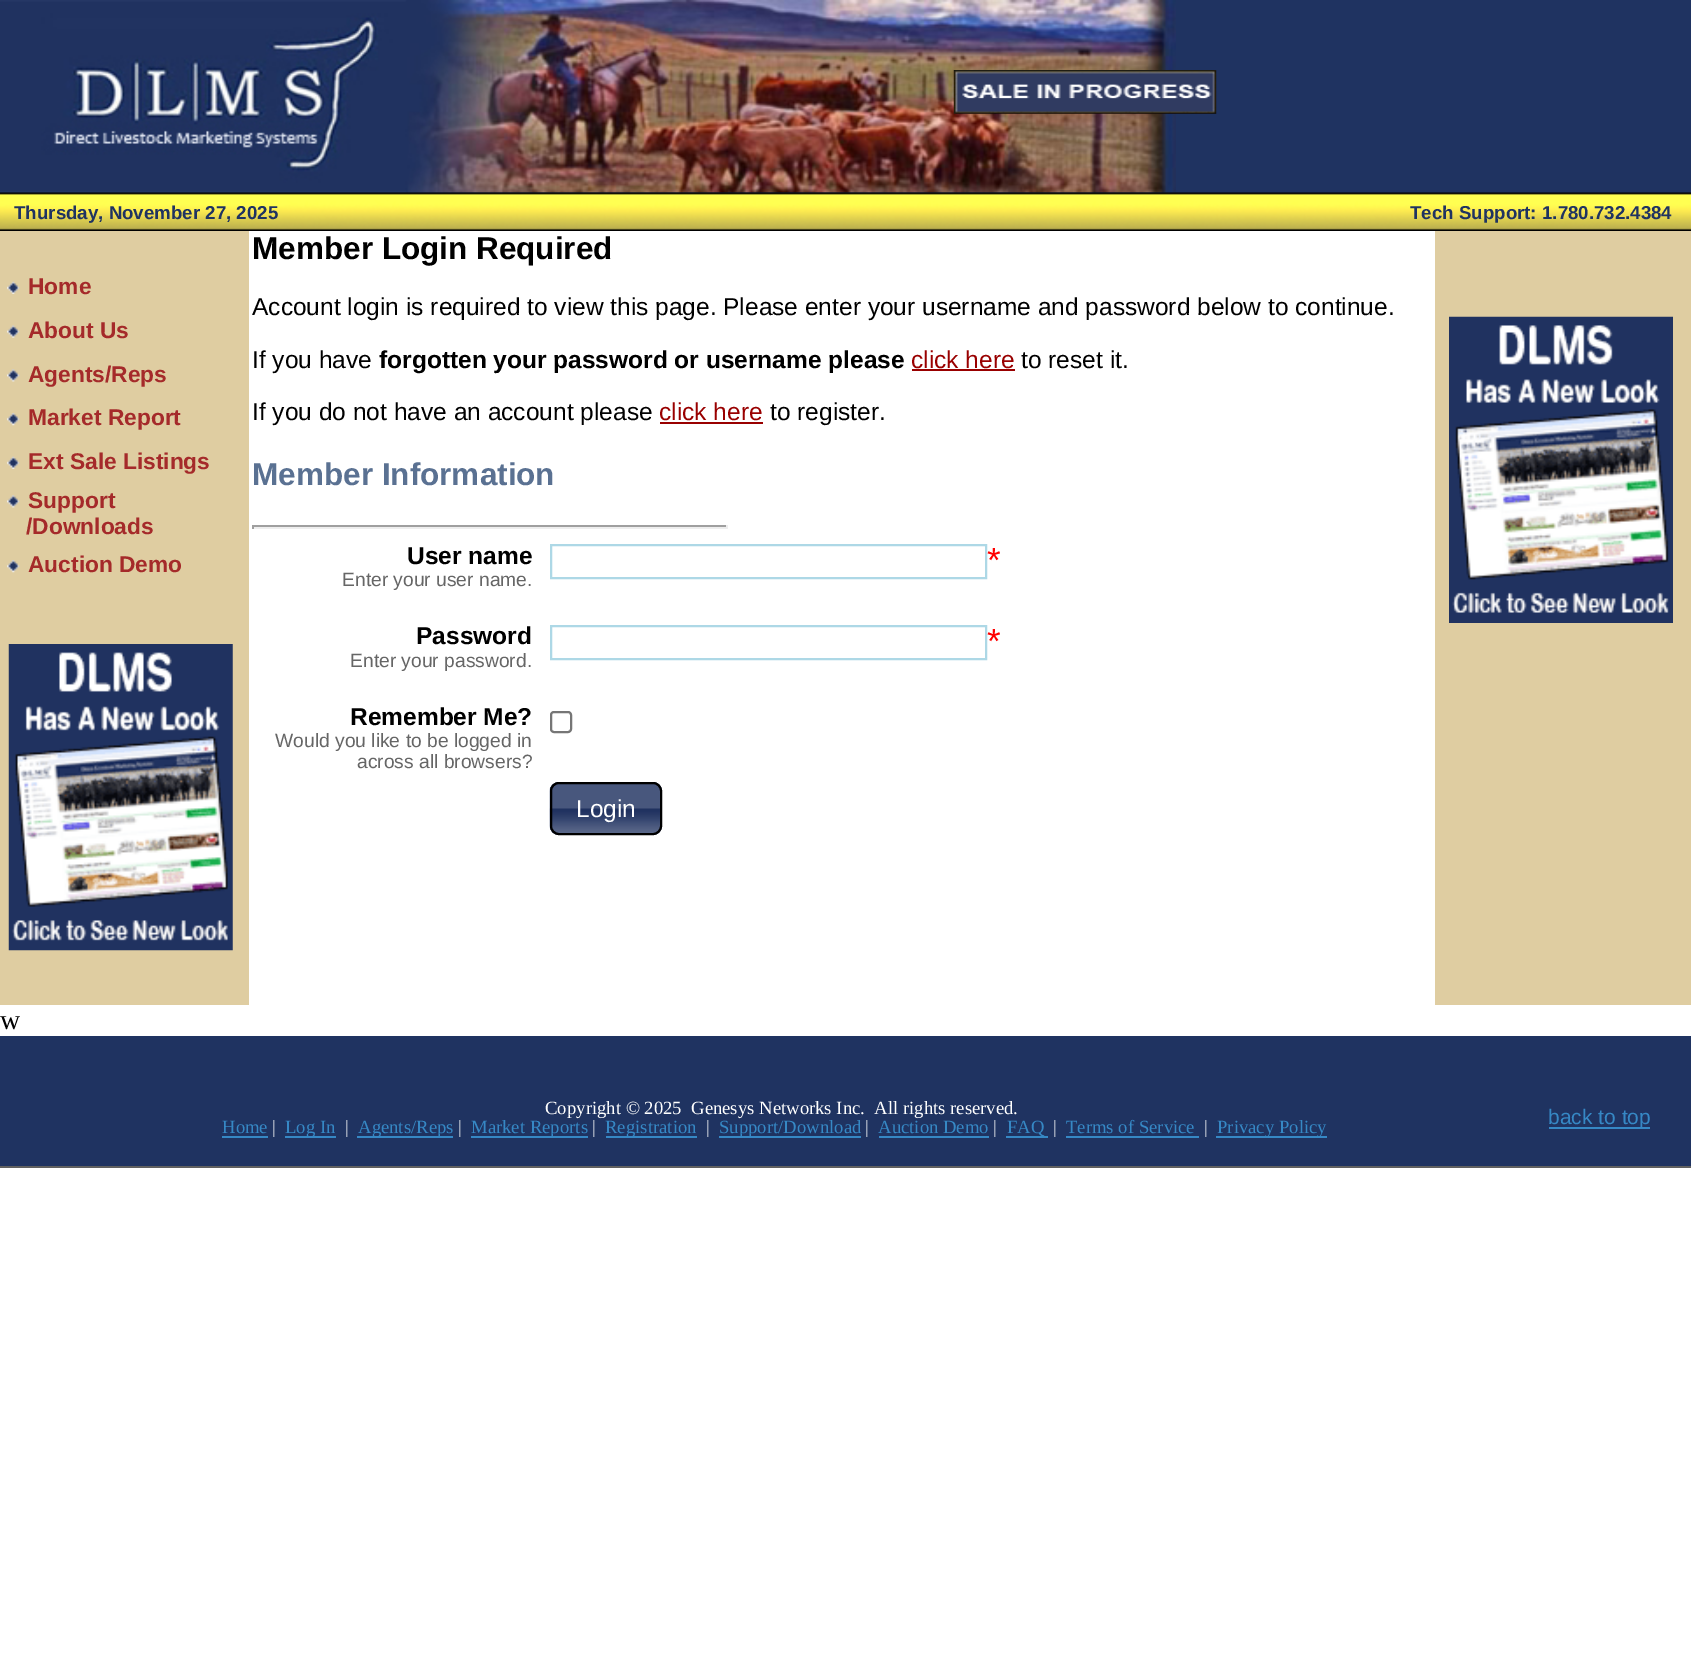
%!PS
<< /PageSize [1691 1680] >> setpagedevice
/rgb { dup -16 bitshift 255 div exch dup -8 bitshift 255 and 255 div exch 255 and 255 div setrgbcolor } def
/font { [ exch dup neg 0 0 3 -1 roll 0 0 ] selectfont } def
/text { moveto show } def
/roundrect { 5 dict begin { /r /h /w /y /x } { exch def } forall
  x r add y moveto x w add y 2 copy h add r arct x w add y h add x 1 index r arct
  x y h add x y r arct x y 2 copy exch w add exch r arct closepath end } def
/picture { 5 dict begin { /h /w /y /x /name } { exch def } forall
  gsave x y translate w h scale
  w h 8 [w 0 0 h 0 0] name (r) file false 3 colorimage grestore end } def
0 1680 translate 1 -1 scale
4 setmiterlimit
/s1 { /LiberationSans-Bold 18.7 font 16#1F3361 rgb } def
/s2 { /LiberationSans-Bold 22.75 font 16#A52A2A rgb } def
/s3 { /LiberationSans-Bold 31.5 font 16#000000 rgb } def
/s4 { /LiberationSans-Regular 24.5 font 16#000000 rgb } def
/s5 { /LiberationSans-Bold 24.5 font 16#000000 rgb } def
/s6 { /LiberationSans-Regular 24.5 font 16#990000 rgb } def
/s7 { /LiberationSans-Bold 31.5 font 16#5A7192 rgb } def
/s8 { /LiberationSans-Regular 19.25 font 16#666666 rgb } def
/s9 { /LiberationSans-Regular 35 font 16#FF0000 rgb } def
/s10 { /LiberationSans-Regular 24.5 font 16#FFFFFF rgb } def
/s11 { /LiberationSerif-Regular 28 font 16#000000 rgb } def
/s12 { /LiberationSerif-Regular 18.7 font 16#FFFFFF rgb } def
/s13 { /LiberationSerif-Regular 18.7 font 16#3688C5 rgb } def
/s14 { /LiberationSans-Regular 21 font 16#3688C5 rgb } def
16#FFFFFF rgb
0 0 1691 1680 rectfill
16#1F3361 rgb
0 0 1691 193 rectfill
(pic1.raw) 0 0 1176 193 picture
(pic2.raw) 953 70 264 44 picture
(pic3.raw) 0 192 1691 39 picture
s1
(Thursday, November 27, 2025) 14 219 text
(Tech Support: 1.780.732.4384) 1410 219 text
16#DFCDA1 rgb
0 231 249 774 rectfill
(pic4.raw) 7 281 13 13 picture
s2
(Home) 28 294 text
(pic5.raw) 7 325 13 13 picture
(About Us) 28 338 text
(pic6.raw) 7 369 13 13 picture
(Agents/Reps) 28 382 text
(pic7.raw) 7 413 13 13 picture
(Market Report) 28 425 text
(pic4.raw) 7 456 13 13 picture
(Ext Sale Listings) 28 469 text
(pic6.raw) 7 495 13 13 picture
(Support) 28 508 text
(/Downloads) 26 534 text
(pic7.raw) 7 560 13 13 picture
(Auction Demo) 28 572 text
(pic8.raw) 8 644 225 307 picture
s3
(Member Login Required) 252 259 text
s4
(Account login is required to view this page. Please enter your username and password below to continue.) 252 315 text
(If you have) 252 368 text
s5
(forgotten your password or username please) 379 368 text
s6
(click here) 911 368 text
912 369 103 2 rectfill
s4
(to reset it.) 1021 368 text
(If you do not have an account please) 252 420 text
s6
(click here) 659 420 text
660 422 103 2 rectfill
s4
(to register.) 770 420 text
s7
(Member Information) 252 485 text
16#9F9F9F rgb
252 525 476 2 rectfill
16#EEEEEE rgb
726 525 2 4 rectfill
252 527 476 2 rectfill
16#9F9F9F rgb
252 525 2 4 rectfill
s5
(User name) 407 564 text
s8
(Enter your user name.) 342 586 text
16#ADD8E6 rgb
2 setlinewidth
551 545 435 33 rectstroke
s9
(*) 987 572 text
s5
(Password) 416 644 text
s8
(Enter your password.) 350 667 text
16#ADD8E6 rgb
551 626 435 33 rectstroke
s9
(*) 987 653 text
s5
(Remember Me?) 350 725 text
s8
(Would you like to be logged in) 275 747 text
(across all browsers?) 357 768 text
16#767676 rgb
551 712 20 20 3 roundrect stroke
(pic9.raw) 549 782 113 53 picture
16#000000 rgb
551 783 110 51 8 roundrect stroke
s10
(Login) 576 817 text
16#DFCDA1 rgb
1435 231 256 774 rectfill
(pic10.raw) 1449 316 224 307 picture
s11
(w) 0 1029 text
16#1F3361 rgb
0 1036 1691 130 rectfill
s12
(Copyright © 2025) 545 1114 text
(Genesys Networks Inc.  All rights reserved.) 691 1114 text
s13
(Home) 222 1133 text
222 1136 46 2 rectfill
s12
(|) 272 1133 text
16#3688C5 rgb
285 1136 51 2 rectfill
(Log In) 285 1133 text
s12
(|) 345 1133 text
16#3688C5 rgb
357 1136 96 2 rectfill
(Agents/Reps) 358 1133 text
s12
(|) 458 1133 text
16#3688C5 rgb
471 1136 117 2 rectfill
(Market Reports) 471 1133 text
s12
(|) 592 1133 text
16#3688C5 rgb
606 1136 91 2 rectfill
(Registration) 605 1133 text
s12
(|) 706 1133 text
16#3688C5 rgb
719 1136 142 2 rectfill
(Support/Download) 719 1133 text
s12
(|) 865 1133 text
s13
(Auction Demo) 878 1133 text
879 1136 110 2 rectfill
s12
(|) 993 1133 text
s13
(FAQ) 1007 1133 text
1006 1136 42 2 rectfill
s12
(|) 1053 1133 text
s13
(Terms of Service) 1066 1133 text
1066 1136 133 2 rectfill
s12
(|) 1204 1133 text
16#3688C5 rgb
1216 1136 111 2 rectfill
(Privacy Policy) 1217 1133 text
1549 1127 101 2 rectfill
s14
(back to top) 1548 1124 text
16#606060 rgb
0 1166 1691 2 rectfill
showpage
